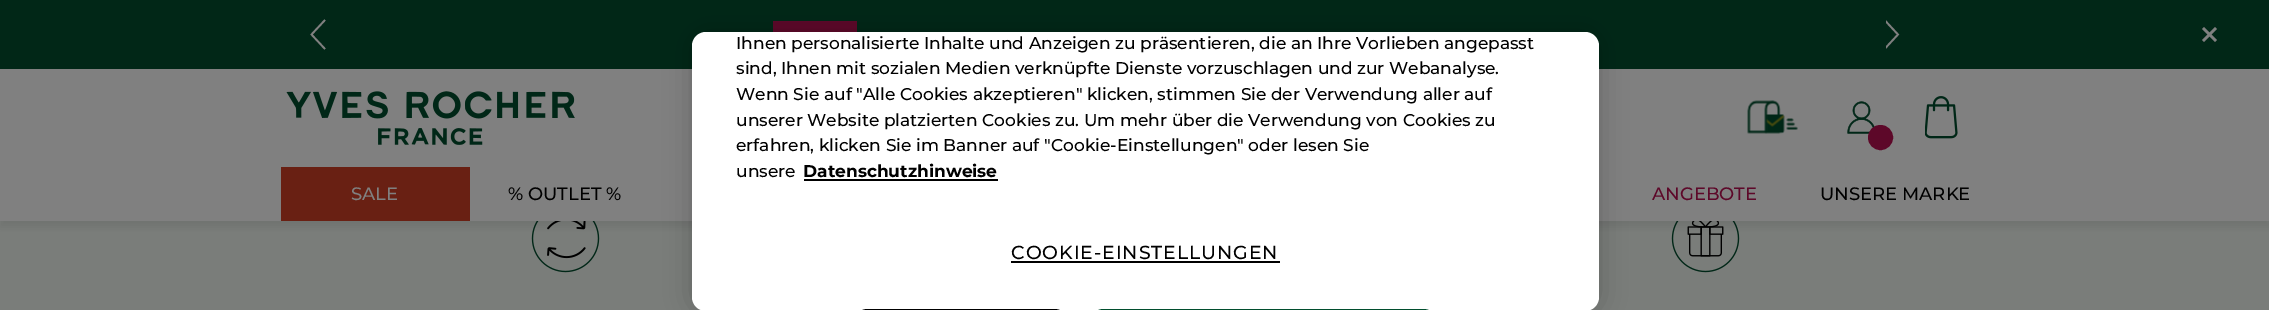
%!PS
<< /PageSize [2269 310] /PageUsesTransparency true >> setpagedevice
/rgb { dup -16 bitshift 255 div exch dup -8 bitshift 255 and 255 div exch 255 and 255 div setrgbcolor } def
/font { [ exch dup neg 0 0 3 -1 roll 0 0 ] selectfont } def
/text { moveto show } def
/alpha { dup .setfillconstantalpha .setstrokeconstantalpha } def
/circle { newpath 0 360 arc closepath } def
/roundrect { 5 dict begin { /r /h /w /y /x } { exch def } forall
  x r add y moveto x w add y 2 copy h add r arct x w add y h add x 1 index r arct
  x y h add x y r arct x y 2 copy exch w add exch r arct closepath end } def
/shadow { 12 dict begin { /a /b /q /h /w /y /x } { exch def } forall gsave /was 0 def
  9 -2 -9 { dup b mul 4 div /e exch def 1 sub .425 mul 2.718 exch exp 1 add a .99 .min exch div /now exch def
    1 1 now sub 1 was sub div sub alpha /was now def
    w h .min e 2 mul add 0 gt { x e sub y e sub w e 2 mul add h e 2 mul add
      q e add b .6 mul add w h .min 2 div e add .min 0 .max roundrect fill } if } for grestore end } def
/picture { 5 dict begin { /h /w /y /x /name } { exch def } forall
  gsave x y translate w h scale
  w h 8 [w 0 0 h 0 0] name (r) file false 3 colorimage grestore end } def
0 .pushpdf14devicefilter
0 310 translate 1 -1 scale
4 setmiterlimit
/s1 { /Montserrat-Medium 17.05 font 16#000000 rgb } def
/s2 { /Montserrat-Bold 17.05 font 16#000000 rgb } def
/s3 { /Montserrat-Medium 18 font 16#808080 rgb } def
/s4 { /Montserrat-Medium 18 font 16#000000 rgb } def
/s5 { /Montserrat-Medium 18 font 16#5D0829 rgb } def
16#7A7D7A rgb
0 0 2269 310 rectfill
16#012717 rgb
0 0 2269 69 rectfill
16#5D0829 rgb
773 21 84 11 rectfill
(pic5.raw) 531 221 69 52 picture
(pic6.raw) 1671 221 69 52 picture
16#000000 rgb
0 173 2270 54 0 4.5 0.1 shadow
16#808080 rgb
0 69 2269 152 rectfill
16#000000 rgb
692 32 907 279 14 13.5 0.2 shadow
16#FFFFFF rgb
692 32 907 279 14 roundrect fill
s1
(Ihnen personalisierte Inhalte und Anzeigen zu präsentieren, die an Ihre Vorlieben angepasst) 736 49 text
(sind, Ihnen mit sozialen Medien verknüpfte Dienste vorzuschlagen und zur Webanalyse.) 736 74 text
(Wenn Sie auf "Alle Cookies akzeptieren" klicken, stimmen Sie der Verwendung aller auf) 736 100 text
(unserer Website platzierten Cookies zu. Um mehr über die Verwendung von Cookies zu) 736 126 text
(erfahren, klicken Sie im Banner auf "Cookie-Einstellungen" oder lesen Sie) 736 151 text
(unsere) 736 177 text
s2
(Datenschutzhinweise) 803 177 text
804 179 194 2 rectfill
/Montserrat-Medium 18.9 font
1011 259 moveto 0.9 0 (COOKIE-EINSTELLUNGEN) ashow
1011 261 269 2 rectfill
867 309 moveto 865 309 862 310 860 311 curveto 1062 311 lineto 1060 310 1057 309 1055 309 curveto closepath fill
16#014E2E rgb
1103 309 moveto 1101 309 1098 310 1096 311 curveto 1431 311 lineto 1429 310 1426 309 1424 309 curveto closepath fill
16#808080 rgb
1.7 setlinewidth
325 49 moveto 311.5 34.5 lineto 325 20 lineto stroke
gsave
1886 20 15 30 rectclip
1884.5 20 moveto 1898 34.5 lineto 1884.5 49 lineto stroke
grestore
2204 27 moveto 2217 40 lineto 2215 42 lineto 2202 29 lineto closepath fill
2202 40 moveto 2215 27 lineto 2217 29 lineto 2204 42 lineto closepath fill
(pic1.raw) 286 91 289 54 picture
(pic2.raw) 1747 100 51 34 picture
(pic3.raw) 1847 101 28 33 picture
16#5D0829 rgb
1880.5 137.5 11 circle gsave fill grestore
3 setlinewidth
stroke
(pic4.raw) 1925 96 33 43 picture
16#692013 rgb
281 167 189 54 rectfill
s3
(SALE) 351 200 text
s4
(% OUTLET %) 508 200 text
s5
(ANGEBOTE) 1652 200 text
s4
(UNSERE MARKE) 1820 200 text
.poppdf14devicefilter showpage
